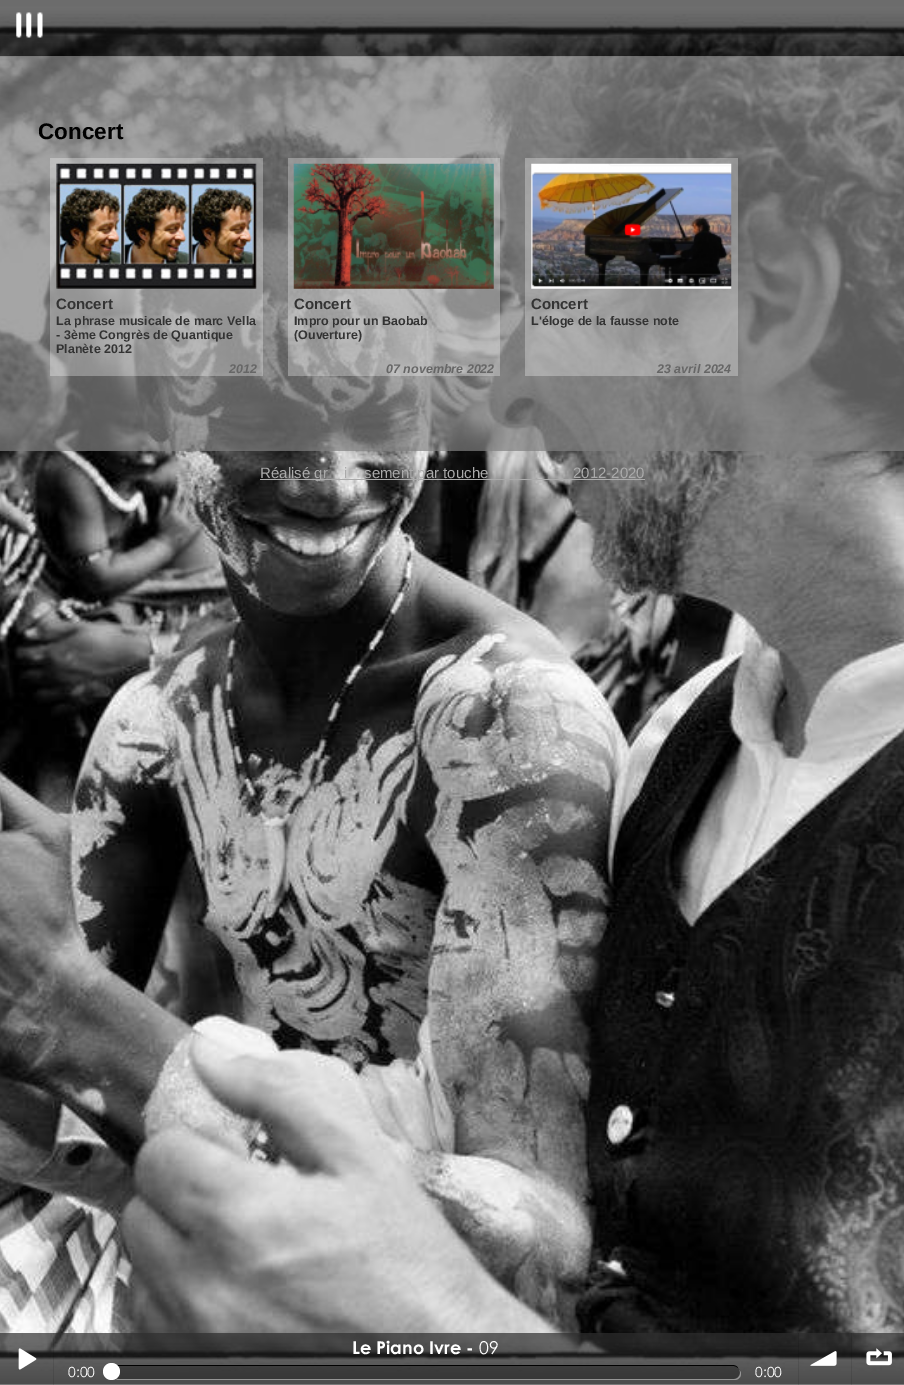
%!PS
<< /PageSize [904 1385] /PageUsesTransparency true >> setpagedevice
/rgb { dup -16 bitshift 255 div exch dup -8 bitshift 255 and 255 div exch 255 and 255 div setrgbcolor } def
/font { [ exch dup neg 0 0 3 -1 roll 0 0 ] selectfont } def
/text { moveto show } def
/alpha { dup .setfillconstantalpha .setstrokeconstantalpha } def
/circle { newpath 0 360 arc closepath } def
/roundrect { 5 dict begin { /r /h /w /y /x } { exch def } forall
  x r add y moveto x w add y 2 copy h add r arct x w add y h add x 1 index r arct
  x y h add x y r arct x y 2 copy exch w add exch r arct closepath end } def
/picture { 5 dict begin { /h /w /y /x /name } { exch def } forall
  gsave x y translate w h scale
  w h 8 [w 0 0 h 0 0] name (r) file false 3 colorimage grestore end } def
0 .pushpdf14devicefilter
0 1385 translate 1 -1 scale
4 setmiterlimit
/s1 { /LiberationSans-Bold 22.5 font 16#000000 rgb } def
/s2 { /LiberationSans-Bold 15 font 16#333333 rgb } def
/s3 { /LiberationSans-Bold 12.5 font 16#333333 rgb } def
/s4 { /LiberationSans-BoldItalic 12.5 font 16#666666 rgb } def
/s5 { /LiberationSans-Regular 15 font 16#AAAAAA rgb } def
/s6 { /CenturyGothic-Bold 17.75 font 16#FFFFFF rgb } def
/s7 { /CenturyGothic-Regular 17.75 font 16#FFFFFF rgb } def
/s8 { /CenturyGothic-Regular 14 font 16#FFFFFF rgb } def
16#FFFFFF rgb
0 0 904 1385 rectfill
(pic1.raw) 0 14 904 1358 picture
(pic2.raw) 0 0 904 57 picture
(pic3.raw) 16 12 27 26 picture
0.7 alpha
16#808080 rgb
0 56 904 395 rectfill
1 alpha
s1
(Concert) 38 139 text
0.3 alpha
16#FFFFFF rgb
50 158 213 218 rectfill
1 alpha
(pic4.raw) 56 163 201 126 picture
s2
(Concert) 56 309 text
s3
(La phrase musicale de marc Vella) 56 325 text
(- 3ème Congrès de Quantique) 56 339 text
(Planète 2012) 56 353 text
s4
(2012) 229 373 text
0.3 alpha
16#FFFFFF rgb
288 158 212 218 rectfill
1 alpha
(pic5.raw) 293 163 201 126 picture
s2
(Concert) 294 309 text
s3
(Impro pour un Baobab) 294 325 text
(\(Ouverture\)) 294 339 text
s4
(07 novembre 2022) 386 373 text
0.3 alpha
16#FFFFFF rgb
525 158 213 218 rectfill
1 alpha
(pic6.raw) 531 163 201 126 picture
s2
(Concert) 531 309 text
s3
(L'éloge de la fausse note) 531 325 text
s4
(23 avril 2024) 657 373 text
16#AAAAAA rgb
260 479 385 1 rectfill
s5
(Réalisé gr) 260 478 text
(i) 344 478 text
(sement par touche) 364 478 text
(2012-2020) 573 478 text
(pic7.raw) 0 1333 904 52 picture
0.1 alpha
16#000000 rgb
53 1333 1 52 rectfill
1 alpha
(pic8.raw) 18 1348 19 22 picture
0.1 alpha
798 1333 1 52 rectfill
1 alpha
s6
(Le Piano Ivre -) 352 1354 text
s7
(09) 479 1354 text
s8
(0:00) 68 1377 text
0.4 alpha
115 1378 moveto 116 1379 117 1380 119 1380 curveto 735 1380 lineto 738 1380 741 1377 741 1374 curveto 741 1372 740 1371 739 1370 curveto 740 1372 lineto 740 1376 737 1379 734 1379 curveto 118 1379 lineto closepath fill
1 alpha
16#000000 rgb
116 1365 moveto 110 1365 108 1374 113 1377 curveto 109 1374 112 1366 118 1366 curveto 734 1366 lineto 735 1366 737 1367 738 1368 curveto 737 1366 735 1365 732 1365 curveto closepath fill
0.3 alpha
111 1366 629 13 6.5 roundrect fill
1 alpha
16#FFFFFF rgb
111.5 1371.5 8.5 circle fill
(0:00) 755 1377 text
0.1 alpha
16#000000 rgb
851 1333 1 52 rectfill
1 alpha
(pic9.raw) 810 1351 27 15 picture
(pic10.raw) 810 1351 27 15 picture
(pic11.raw) 866 1348 26 18 picture
.poppdf14devicefilter showpage
